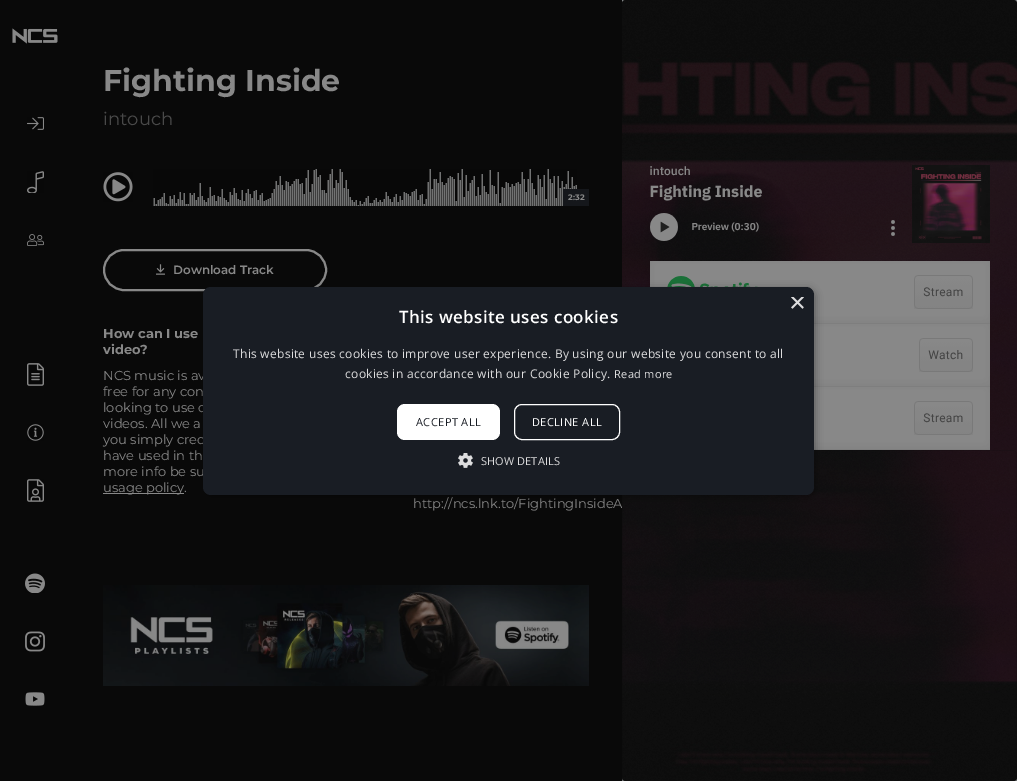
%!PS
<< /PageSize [1017 781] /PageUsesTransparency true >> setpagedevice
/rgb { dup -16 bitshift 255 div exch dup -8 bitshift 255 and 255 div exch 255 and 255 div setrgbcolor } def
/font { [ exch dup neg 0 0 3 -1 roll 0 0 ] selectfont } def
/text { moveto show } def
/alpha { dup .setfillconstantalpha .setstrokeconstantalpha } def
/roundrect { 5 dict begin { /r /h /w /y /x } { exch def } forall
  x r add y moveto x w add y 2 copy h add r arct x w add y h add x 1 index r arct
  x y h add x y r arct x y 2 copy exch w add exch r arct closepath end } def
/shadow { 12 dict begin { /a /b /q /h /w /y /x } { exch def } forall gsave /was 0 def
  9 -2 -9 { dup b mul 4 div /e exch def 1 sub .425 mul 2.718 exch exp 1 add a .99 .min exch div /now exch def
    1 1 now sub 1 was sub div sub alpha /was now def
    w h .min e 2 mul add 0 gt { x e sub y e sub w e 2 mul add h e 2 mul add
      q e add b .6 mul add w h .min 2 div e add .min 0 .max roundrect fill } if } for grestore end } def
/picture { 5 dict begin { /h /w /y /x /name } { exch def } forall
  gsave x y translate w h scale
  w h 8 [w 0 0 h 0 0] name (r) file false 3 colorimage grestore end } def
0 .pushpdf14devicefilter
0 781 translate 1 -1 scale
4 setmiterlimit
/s1 { /Montserrat-Bold 30 font 16#888888 rgb } def
/s2 { /Montserrat-Regular 18 font 16#494949 rgb } def
/s3 { /Montserrat-Bold 8 font 16#888888 rgb } def
/s4 { /Montserrat-SemiBold 12 font 16#888888 rgb } def
/s5 { /Montserrat-Bold 13 font 16#888888 rgb } def
/s6 { /Montserrat-Regular 13 font 16#888888 rgb } def
/s7 { /LiberationSans-Regular 29 font 16#DDDDDE rgb } def
16#818485 rgb
0 0 1017 781 rectfill
16#090909 rgb
0 0 622 781 rectfill
(pic1.raw) 12 28 46 16 picture
(pic2.raw) 27 117 17 13 picture
(pic3.raw) 27 171 17 22 picture
(pic4.raw) 27 234 17 12 picture
(pic5.raw) 27 363 17 23 picture
(pic6.raw) 27 424 17 17 picture
(pic7.raw) 27 479 17 23 picture
(pic8.raw) 25 573 20 20 picture
(pic9.raw) 25 631 20 21 picture
(pic10.raw) 25 692 20 14 picture
s1
(Fighting Inside) 103 91 text
s2
(intouch) 103 125 text
(pic11.raw) 103 172 30 30 picture
(pic12.raw) 153 169 424 37 picture
16#15171B rgb
563 189 26 17 rectfill
s3
(2:32) 568 200 text
2 setlinewidth
104 250 222 40 20 roundrect stroke
(pic13.raw) 156 264 9 11 picture
s4
(Download Track) 173 274 text
s5
(How can I use) 103 338 text
(video?) 103 354 text
s6
(NCS music is av) 103 380 text
(free for any con) 103 396 text
(looking to use o) 103 412 text
(videos. All we a) 103 428 text
(you simply cred) 103 444 text
(have used in th) 103 460 text
(more info be su) 103 476 text
103 493 81 1 rectfill
(usage policy.) 103 492 text
(http://ncs.lnk.to/FightingInsideA) 413 508 text
(pic14.raw) 103 585 486 101 picture
(pic15.raw) 622 0 395 781 picture
16#000000 rgb
204 289 611 208 8 4 0.35 shadow
16#191D24 rgb
203 287 611 208 8 roundrect fill
gsave
789 297 15 15 rectclip
s7
(×) 789 312 text
grestore
/OpenSans-SemiBold 17 font
16#FFFFFF rgb
399 323 moveto 0.4 0 (This website uses cookies) ashow
/OpenSans-Regular 12 font
16#DDDDDE rgb
233 358 moveto 0.3 0 (This website uses cookies to improve user experience. By using our website you consent to all) ashow
345 378 moveto 0.3 0 (cookies in accordance with our Cookie Policy.) ashow
/OpenSans-Regular 11 font
614 378 moveto 0.3 0 (Read more) ashow
16#FFFFFF rgb
397 404 103 36 8 roundrect fill
16#191D24 rgb
416 426 moveto 0.4 0 (ACCEPT ALL) ashow
16#FFFFFF rgb
1 setlinewidth
514.5 404.5 105 35 7.5 roundrect stroke
532 426 moveto 0.4 0 (DECLINE ALL) ashow
(pic16.raw) 458 453 15 15 picture
16#DDDDDE rgb
481 465 moveto 0.1 0 (SHOW DETAILS) ashow
.poppdf14devicefilter showpage
